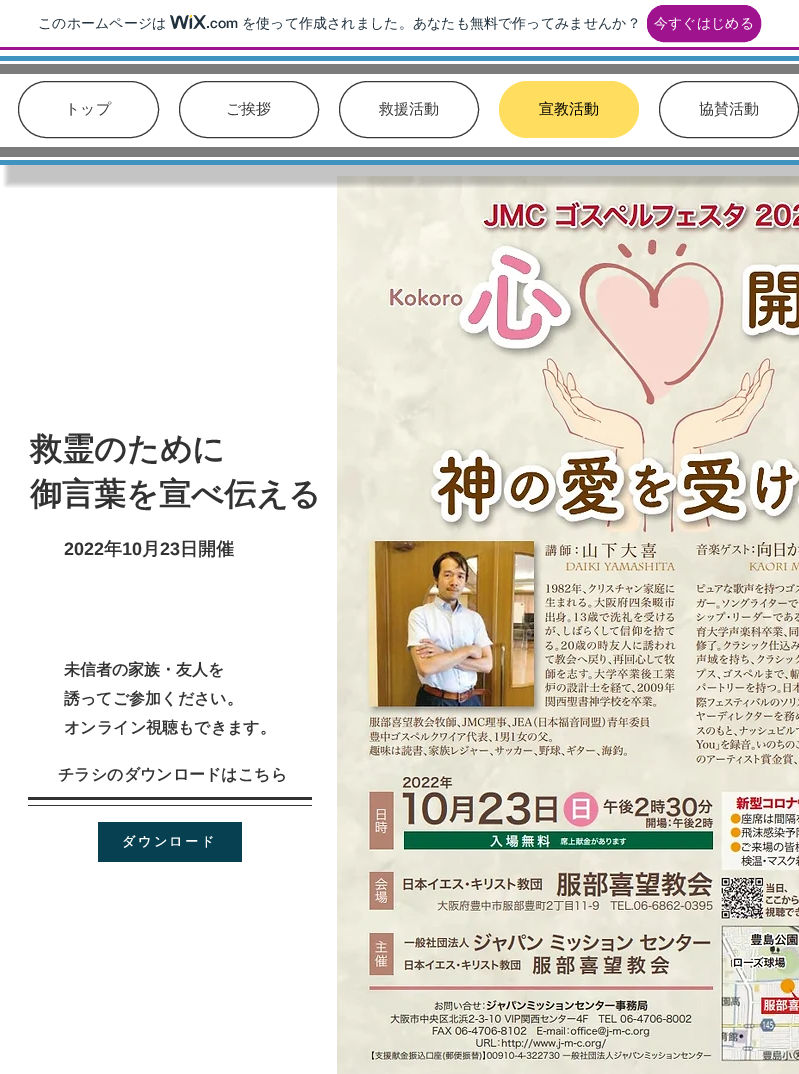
%!PS
<< /PageSize [799 1074] /PageUsesTransparency true >> setpagedevice
/rgb { dup -16 bitshift 255 div exch dup -8 bitshift 255 and 255 div exch 255 and 255 div setrgbcolor } def
/font { [ exch dup neg 0 0 3 -1 roll 0 0 ] selectfont } def
/text { moveto show } def
/alpha { dup .setfillconstantalpha .setstrokeconstantalpha } def
/roundrect { 5 dict begin { /r /h /w /y /x } { exch def } forall
  x r add y moveto x w add y 2 copy h add r arct x w add y h add x 1 index r arct
  x y h add x y r arct x y 2 copy exch w add exch r arct closepath end } def
/shadow { 12 dict begin { /a /b /q /h /w /y /x } { exch def } forall gsave /was 0 def
  9 -2 -9 { dup b mul 4 div /e exch def 1 sub .425 mul 2.718 exch exp 1 add a .99 .min exch div /now exch def
    1 1 now sub 1 was sub div sub alpha /was now def
    w h .min e 2 mul add 0 gt { x e sub y e sub w e 2 mul add h e 2 mul add
      q e add b .6 mul add w h .min 2 div e add .min 0 .max roundrect fill } if } for grestore end } def
/picture { 5 dict begin { /h /w /y /x /name } { exch def } forall
  gsave x y translate w h scale
  w h 8 [w 0 0 h 0 0] name (r) file false 3 colorimage grestore end } def
0 .pushpdf14devicefilter
0 1074 translate 1 -1 scale
4 setmiterlimit
/s1 { /WenQuanYiZenHei-Medium 14 font 16#20303C rgb } def
/s2 { /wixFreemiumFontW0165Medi-Medium 14 font 16#20303C rgb } def
/s3 { /WenQuanYiZenHei-Medium 14 font 16#FFFFFF rgb } def
/s4 { /WenQuanYiZenHei-Medium 15 font 16#383838 rgb } def
/s5 { /WenQuanYiZenHei-Medium 15 font 16#000000 rgb } def
/s6 { /WenQuanYiZenHei-Bold 32 font 16#323232 rgb } def
/s7 { /LiberationSans-Bold 18 font 16#323232 rgb } def
/s8 { /WenQuanYiZenHei-Bold 18 font 16#323232 rgb } def
/s9 { /WenQuanYiZenHei-Bold 16 font 16#323232 rgb } def
16#FFFFFF rgb
0 0 799 1074 rectfill
16#A0138E rgb
0 47 799 3 rectfill
s1
(このホームページは) 38 28 text
(pic1.raw) 170 15 36 15 picture
s2
(.com) 206 28 text
s1
(を使って作成されました。あなたも無料で作ってみませんか？) 242 28 text
16#A0138E rgb
647.5 5.5 113 36 16.5 roundrect gsave fill grestore
stroke
s3
(今すぐはじめる) 654 28 text
16#4193BF rgb
0 56 799 5 rectfill
(pic2.raw) 337 176 462 898 picture
gsave
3 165 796 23 rectclip
16#000000 rgb
6 76 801 109 0 2.5 0.24 shadow
grestore
0 160 799 5 rectfill
16#7C7C7C rgb
0 64 799 10 rectfill
0 147 799 10 rectfill
16#383838 rgb
18.5 81.5 140 56 28 roundrect stroke
s4
(トップ) 65 114 text
179.5 81.5 139 56 28 roundrect stroke
(ご挨拶) 226 114 text
339.5 81.5 139 56 28 roundrect stroke
(救援活動) 379 114 text
16#FFDE5F rgb
499 81 140 57 28.5 roundrect fill
s5
(宣教活動) 539 114 text
16#383838 rgb
659.5 81.5 139 56 28 roundrect stroke
(協賛活動) 699 114 text
s6
(救霊のために) 30 460 text
(御言葉を宣べ伝える) 30 505 text
s7
(2022) 64 555 text
s8
(年) 104 555 text
s7
(10) 122 555 text
s8
(月) 142 555 text
s7
(23) 160 555 text
s8
(日開催) 180 555 text
s9
(未信者の家族・友人を) 64 675 text
(誘ってご参加ください。) 64 704 text
(オンライン視聴もできます。) 64 733 text
(チラシのダウンロードはこちら) 58 780 text
28 797 284 3 rectfill
28 805 284 1 rectfill
16#074151 rgb
98 822 144 40 rectfill
/WenQuanYiZenHei-Bold 13 font
16#FFFFFF rgb
122 846 moveto 2.5 0 (ダウンロード) ashow
.poppdf14devicefilter showpage
